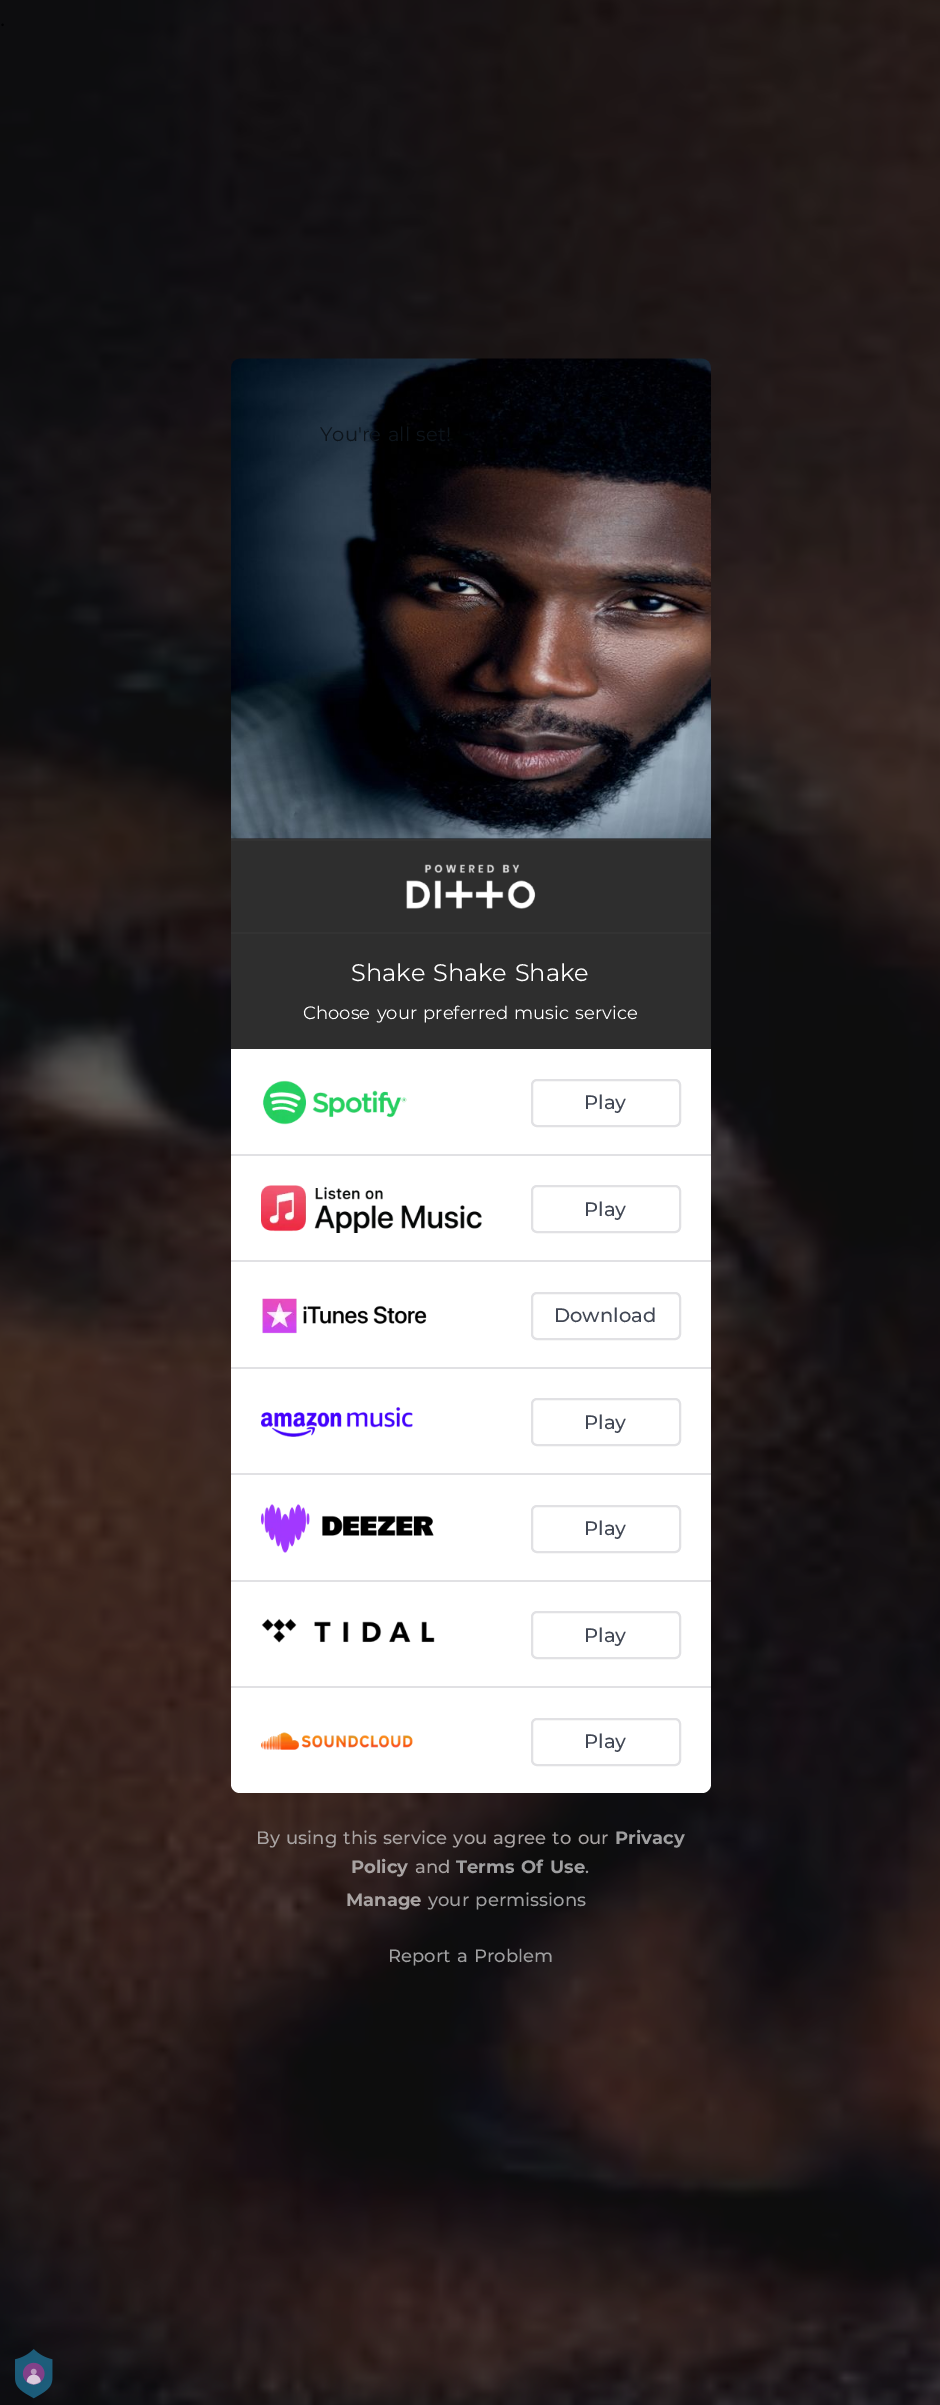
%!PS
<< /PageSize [940 2405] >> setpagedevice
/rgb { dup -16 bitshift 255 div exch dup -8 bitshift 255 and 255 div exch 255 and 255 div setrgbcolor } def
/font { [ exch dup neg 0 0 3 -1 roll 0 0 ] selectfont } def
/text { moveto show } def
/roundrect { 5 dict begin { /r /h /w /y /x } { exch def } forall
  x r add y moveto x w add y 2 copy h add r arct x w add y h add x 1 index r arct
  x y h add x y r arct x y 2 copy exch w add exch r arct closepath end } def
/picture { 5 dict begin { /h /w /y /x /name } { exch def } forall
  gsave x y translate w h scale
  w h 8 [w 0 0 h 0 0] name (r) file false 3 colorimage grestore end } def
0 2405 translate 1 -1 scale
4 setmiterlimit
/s1 { /Montserrat-Medium 19.5 font 16#414754 rgb } def
/s2 { /Montserrat-Bold 18 font 16#9F9FA0 rgb } def
/s3 { /Montserrat-Bold 18 font 16#A9A4A3 rgb } def
/s4 { /Montserrat-Medium 18 font 16#A9A4A3 rgb } def
/s5 { /Montserrat-Medium 18 font 16#9F9FA0 rgb } def
16#FFFFFF rgb
0 0 940 2405 rectfill
(pic1.raw) 0 0 940 2405 picture
(pic2.raw) 231 358 480 481 picture
/Montserrat-Regular 19.5 font
16#0D141B rgb
320 441 moveto 1.5 0 32 (You're all set!) widthshow
16#2E2E2E rgb
231 841 480 91 rectfill
16#333333 rgb
231 839 480 2 rectfill
231 932 480 2 rectfill
(pic3.raw) 406 864 130 45 picture
16#2E2E2E rgb
231 934 480 115 rectfill
/Montserrat-Regular 24 font
16#FFFFFF rgb
351 981 moveto 1.5 0 32 (Shake Shake Shake) widthshow
/Montserrat-Regular 18 font
303 1019 moveto 1.5 0 32 (Choose your preferred music service) widthshow
231 1049 moveto 711 1049 lineto 711 1784 lineto 711 1789 707 1793 702 1793 curveto 240 1793 lineto 235 1793 231 1789 231 1784 curveto closepath fill
16#E1E1E4 rgb
231 1154 480 2 rectfill
(pic4.raw) 262 1080 145 45 picture
2 setlinewidth
532 1080 148 46 5 roundrect stroke
s1
(Play) 584 1109 text
16#E1E1E4 rgb
231 1260 480 2 rectfill
(pic5.raw) 261 1185 221 48 picture
532 1186 148 46 5 roundrect stroke
s1
(Play) 584 1216 text
16#E1E1E4 rgb
231 1367 480 2 rectfill
(pic6.raw) 262 1298 165 36 picture
532 1293 148 46 5 roundrect stroke
s1
(Download) 554 1322 text
16#E1E1E4 rgb
231 1473 480 2 rectfill
(pic7.raw) 261 1407 152 30 picture
532 1399 148 46 5 roundrect stroke
s1
(Play) 584 1429 text
16#E1E1E4 rgb
231 1580 480 2 rectfill
(pic8.raw) 261 1504 173 49 picture
532 1506 148 46 5 roundrect stroke
s1
(Play) 584 1535 text
16#E1E1E4 rgb
231 1686 480 2 rectfill
(pic9.raw) 261 1618 174 25 picture
532 1612 148 46 5 roundrect stroke
s1
(Play) 584 1642 text
(pic10.raw) 261 1732 152 18 picture
16#E1E1E4 rgb
532 1719 148 46 5 roundrect stroke
s1
(Play) 584 1748 text
/Montserrat-Medium 18 font
16#A9A4A3 rgb
256 1844 moveto 1.5 0 32 (By using this service you agree to our) widthshow
s2
(Privacy) 615 1844 text
s3
(Policy) 351 1873 text
s4
(and) 415 1873 text
/Montserrat-Bold 18 font
16#9F9FA0 rgb
456 1873 moveto 1.5 0 32 (Terms Of Use) widthshow
s5
(.) 585 1873 text
s3
(Manage) 346 1906 text
/Montserrat-Medium 18 font
16#9F9FA0 rgb
428 1906 moveto 1.5 0 32 (your permissions) widthshow
388 1962 moveto 1.5 0 32 (Report a Problem) widthshow
(pic11.raw) 15 2349 38 50 picture
showpage
